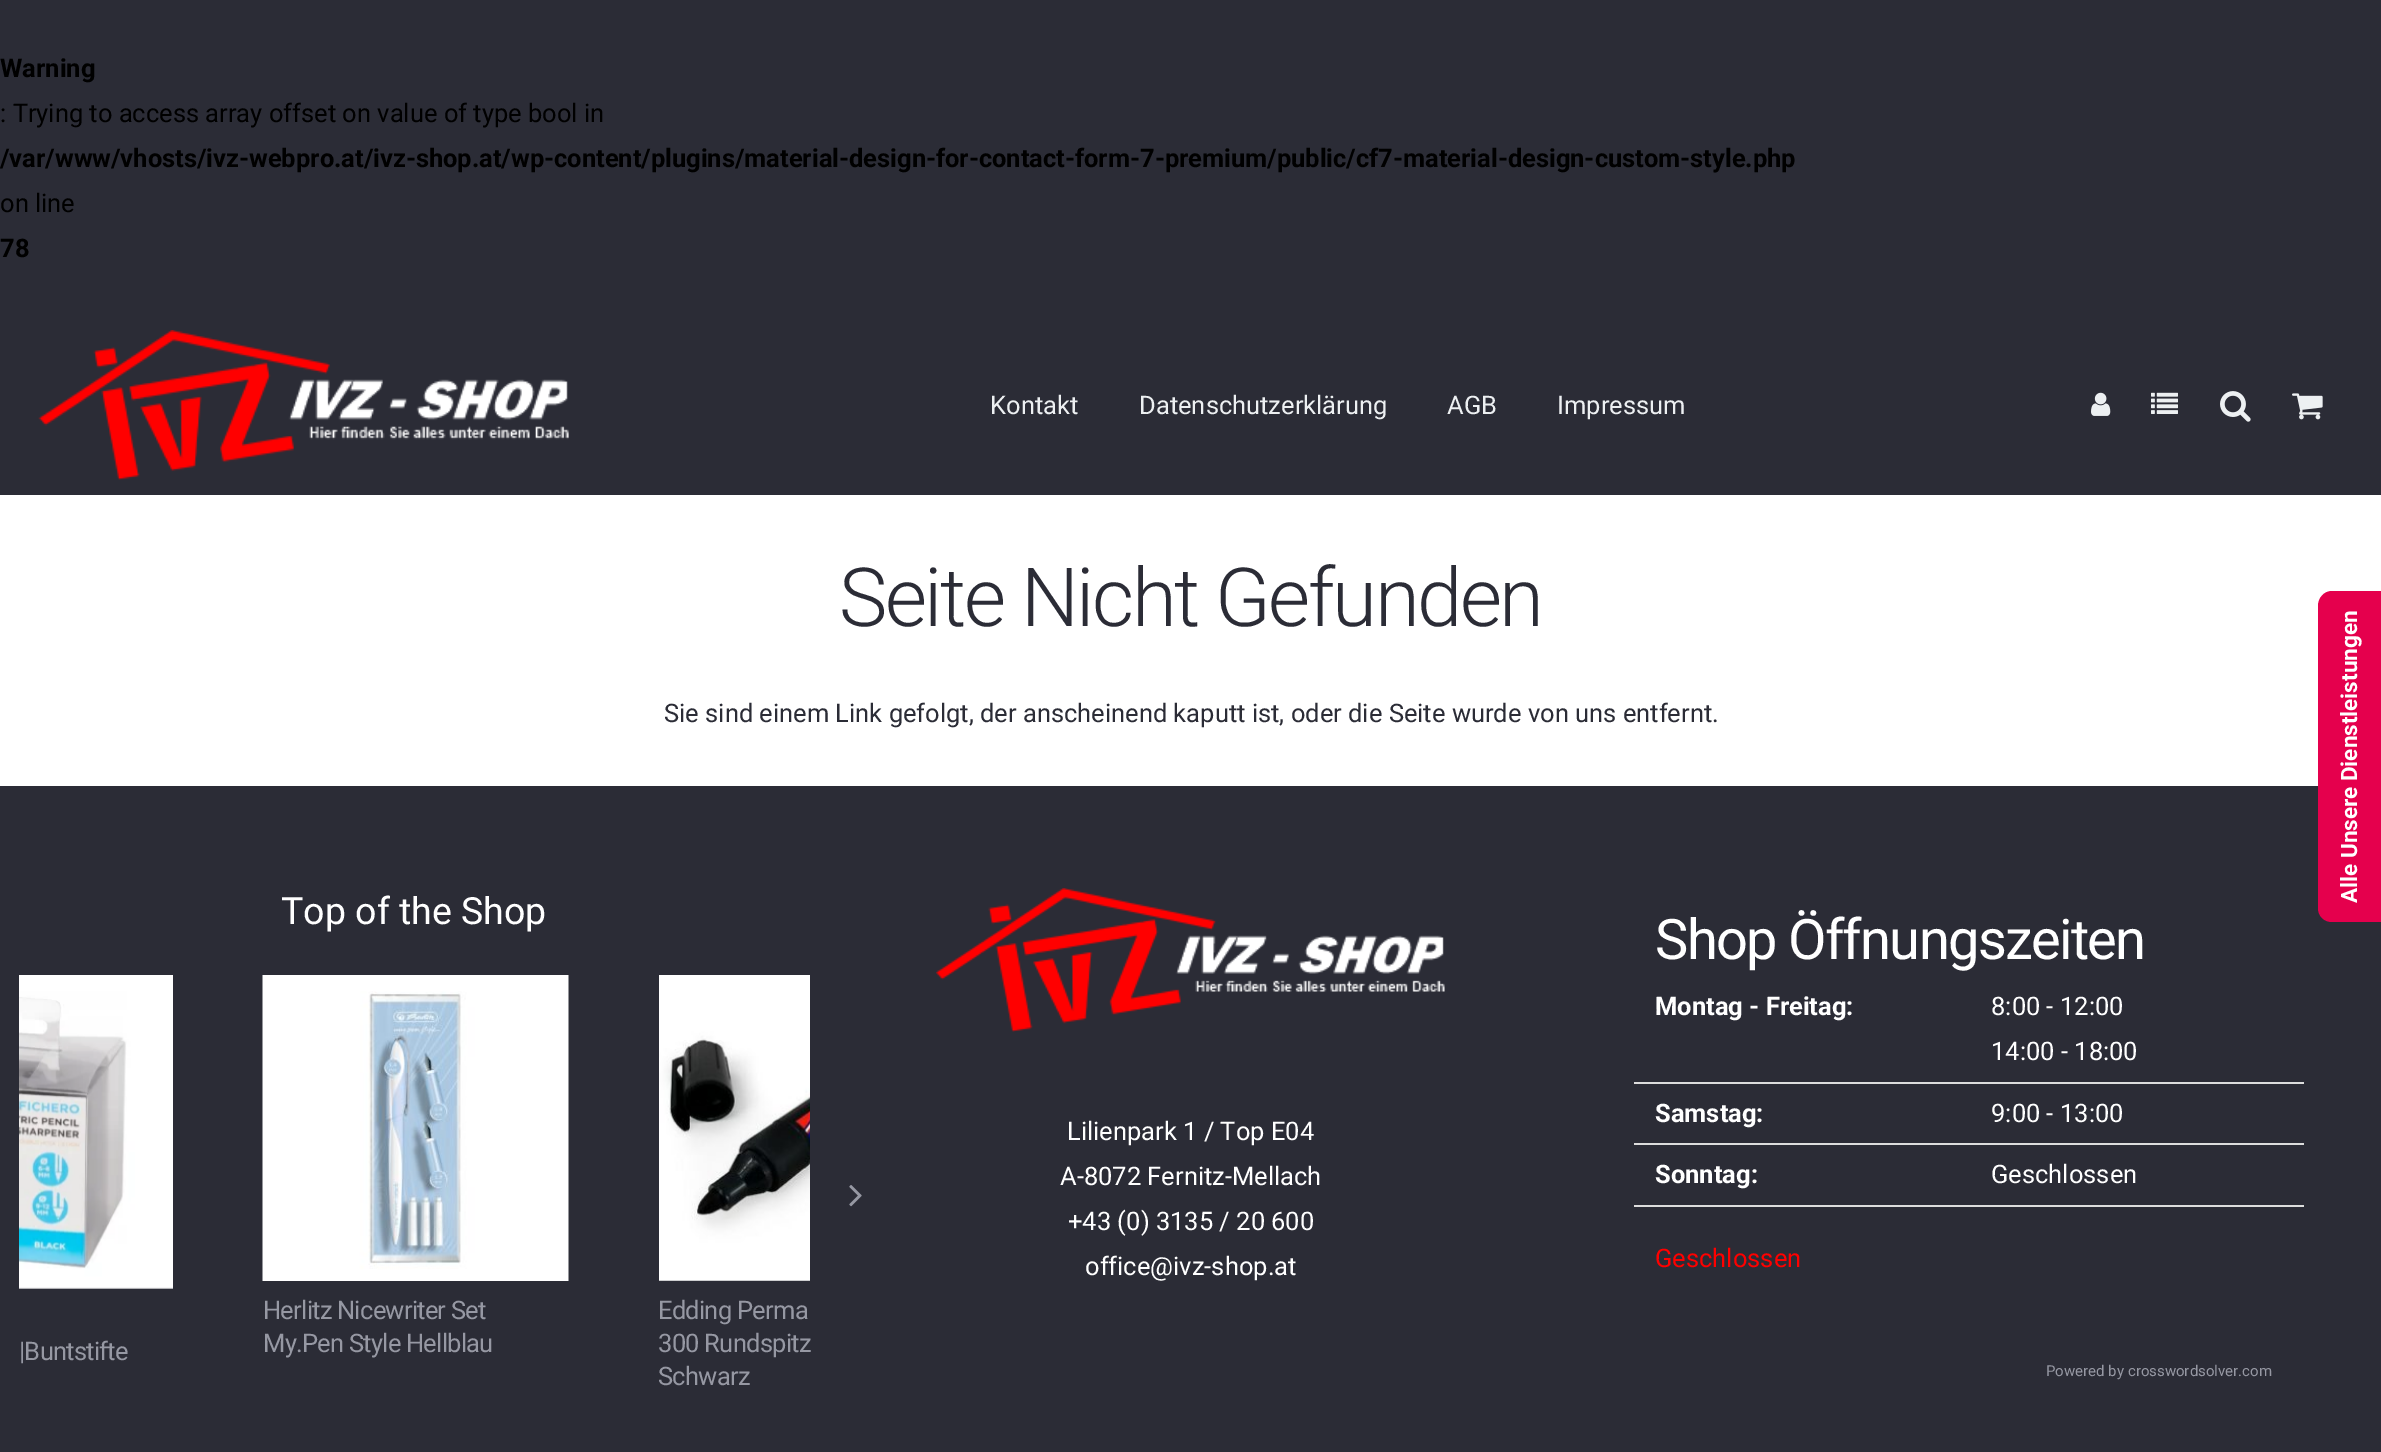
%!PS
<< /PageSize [2381 1452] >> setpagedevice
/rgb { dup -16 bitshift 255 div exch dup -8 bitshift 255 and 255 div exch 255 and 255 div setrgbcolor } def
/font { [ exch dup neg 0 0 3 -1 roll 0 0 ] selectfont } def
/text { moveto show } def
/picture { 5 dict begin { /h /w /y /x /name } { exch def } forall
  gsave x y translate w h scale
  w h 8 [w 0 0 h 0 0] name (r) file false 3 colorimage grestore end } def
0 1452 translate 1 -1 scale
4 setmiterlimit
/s1 { /Roboto-Bold 25.5 font 16#000000 rgb } def
/s2 { /Roboto-Regular 25.5 font 16#000000 rgb } def
/s3 { /Roboto-Regular 25.5 font 16#EDF0F2 rgb } def
/s4 { /Roboto-Regular 25.5 font 16#2B2C36 rgb } def
/s5 { /Roboto-Regular 37.5 font 16#FFFFFF rgb } def
/s6 { /Roboto-Regular 25.5 font 16#FFFFFF rgb } def
/s7 { /Roboto-Bold 25.5 font 16#FFFFFF rgb } def
/s8 { /Roboto-Regular 25.5 font 16#FF0000 rgb } def
/s9 { /Roboto-Regular 15 font 16#9698A3 rgb } def
16#2B2C36 rgb
0 0 2381 1452 rectfill
s1
(Warning) 0 77 text
s2
(: Trying to access array offset on value of type bool in) 0 122 text
s1
(/var/www/vhosts/ivz-webpro.at/ivz-shop.at/wp-content/plugins/material-design-for-contact-form-7-premium/public/cf7-material-design-custom-style.php) 0 167 text
s2
(on line) 0 212 text
s1
(78) 0 257 text
16#FFFFFF rgb
0 495 2381 291 rectfill
(pic1.raw) 38 330 531 150 picture
s3
(Kontakt) 990 414 text
(Datenschutzerklärung) 1139 414 text
(AGB) 1447 414 text
(Impressum) 1557 414 text
(pic2.raw) 2091 392 20 24 picture
(pic3.raw) 2151 392 27 22 picture
(pic4.raw) 2220 391 31 31 picture
(pic5.raw) 2292 393 31 27 picture
/Roboto-Light 81.5 font
16#2B2C36 rgb
839 626 moveto -2.5 0 (Seite Nicht Gefunden) ashow
s4
(Sie sind einem Link gefolgt, der anscheinend kaputt ist, oder die Seite wurde von uns entfernt.) 664 722 text
16#E5004D rgb
2318 908 moveto 2318 606 lineto 2318 598 2324 591 2332 591 curveto 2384 591 lineto 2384 922 lineto 2332 922 lineto 2324 922 2318 916 2318 908 curveto closepath fill
/Roboto-Bold 22.5 font
16#FFFFFF rgb
gsave 2357 903 translate -90 rotate 0 0 moveto (Alle Unsere Dienstleistungen) show grestore
s5
(Top of the Shop) 281 924 text
(pic6.raw) 849 1185 13 22 picture
(pic7.raw) 19 975 154 314 picture
/Roboto-Regular 25.5 font
16#9698A3 rgb
19 1360 moveto -0.75 0 (|Buntstifte) ashow
(pic8.raw) 262 975 307 306 picture
263 1319 moveto -0.75 0 (Herlitz Nicewriter Set) ashow
263 1352 moveto -0.75 0 (My.Pen Style Hellblau) ashow
(pic9.raw) 659 975 151 306 picture
658 1319 moveto -0.75 0 (Edding Perma) ashow
658 1352 moveto -0.75 0 (300 Rundspitz) ashow
658 1385 moveto -0.75 0 (Schwarz) ashow
(pic10.raw) 936 888 509 144 picture
s6
(Lilienpark 1 / Top E04) 1067 1140 text
(A-8072 Fernitz-Mellach) 1060 1185 text
(+43 \(0\) 3135 / 20 600) 1068 1230 text
(office@ivz-shop.at) 1085 1275 text
/Roboto-Regular 56 font
1655 959 moveto -1.7 0 (Shop Öffnungszeiten) ashow
s7
(Montag - Freitag:) 1655 1015 text
s6
(8:00 - 12:00) 1991 1015 text
(14:00 - 18:00) 1991 1060 text
16#DDDDDD rgb
1634 1082 670 2 rectfill
s7
(Samstag:) 1655 1122 text
s6
(9:00 - 13:00) 1991 1122 text
16#DDDDDD rgb
1634 1143 670 2 rectfill
s7
(Sonntag:) 1655 1183 text
s6
(Geschlossen) 1991 1183 text
16#DDDDDD rgb
1634 1205 670 2 rectfill
s8
(Geschlossen) 1655 1267 text
s9
(Powered by crosswordsolver.com) 2046 1376 text
showpage
